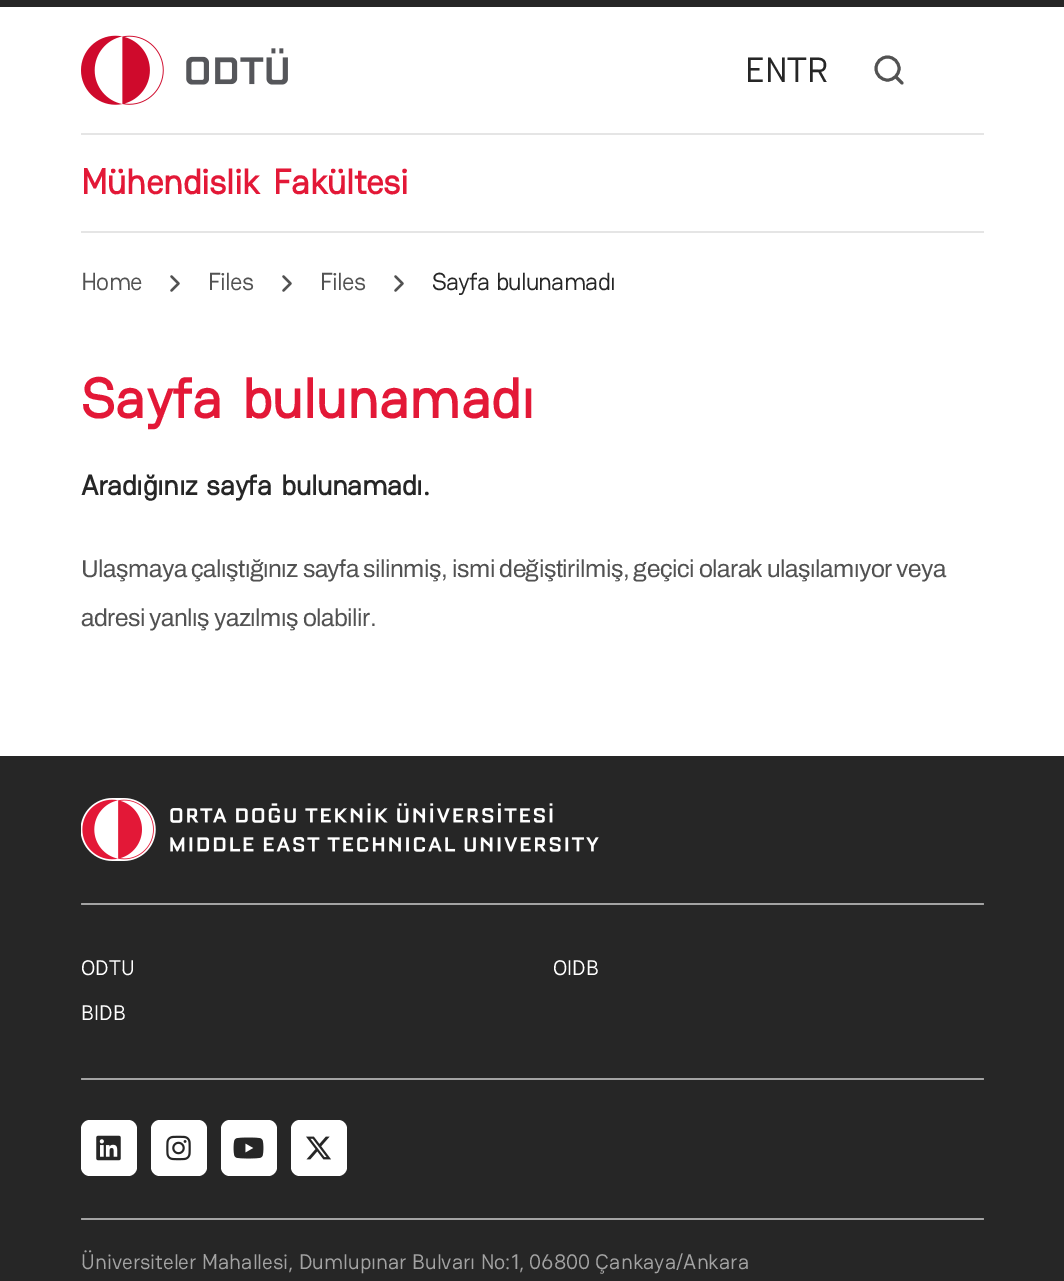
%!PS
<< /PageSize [1064 1281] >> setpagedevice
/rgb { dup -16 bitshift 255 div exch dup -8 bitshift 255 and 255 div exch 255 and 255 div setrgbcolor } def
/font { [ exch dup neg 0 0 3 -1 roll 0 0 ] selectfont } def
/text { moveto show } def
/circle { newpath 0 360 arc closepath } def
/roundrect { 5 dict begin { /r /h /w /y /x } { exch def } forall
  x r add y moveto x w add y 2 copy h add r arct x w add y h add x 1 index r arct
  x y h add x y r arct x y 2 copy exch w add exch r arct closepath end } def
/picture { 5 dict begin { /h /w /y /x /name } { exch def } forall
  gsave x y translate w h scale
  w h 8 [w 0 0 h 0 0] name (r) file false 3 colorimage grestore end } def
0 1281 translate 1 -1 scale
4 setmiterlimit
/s1 { /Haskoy-Regular 35 font 16#262626 rgb } def
/s2 { /Haskoy-Regular 21 font 16#FFFFFF rgb } def
/s3 { /Haskoy-Regular 21 font 16#A3A3A3 rgb } def
16#FFFFFF rgb
0 0 1064 1281 rectfill
16#262626 rgb
0 0 1064 7 rectfill
(pic1.raw) 81 35 207 70 picture
s1
(ENTR) 745 82 text
16#525252 rgb
2.9 setlinewidth
887.5 68.5 11.5 circle stroke
1 setlinecap
1 setlinejoin
902 83 moveto 896 77 lineto stroke
16#E5E5E5 rgb
81 231 moveto 81 233 lineto 984 233 lineto 984 135 lineto 984 231 lineto closepath fill
81 133 903 2 rectfill
/Haskoy-Bold 35 font
16#E31837 rgb
81 194 moveto 5 0 32 -0.4 0 (Mühendislik Fakültesi) awidthshow
/Haskoy-Regular 24.5 font
16#525252 rgb
81 290 moveto -0.9 0 (Home) ashow
2.3 setlinewidth
171.5 290.5 moveto 178.5 283.5 lineto 171.5 276.5 lineto stroke
208 290 moveto -0.9 0 (Files) ashow
283.5 290.5 moveto 290.5 283.5 lineto 283.5 276.5 lineto stroke
320 290 moveto -0.9 0 (Files) ashow
395.5 290.5 moveto 402.5 283.5 lineto 395.5 276.5 lineto stroke
16#262626 rgb
432 290 moveto 1 0 32 -0.9 0 (Sayfa bulunamadı) awidthshow
/Haskoy-Bold 56 font
16#E31837 rgb
81 418 moveto 5 0 32 (Sayfa bulunamadı) widthshow
/Haskoy-Bold 28 font
16#262626 rgb
81 495 moveto 3 0 32 -0.5 0 (Aradığınız sayfa bulunamadı.) awidthshow
/Archivo-Regular 24.5 font
16#525252 rgb
81 577 moveto -0.5 0 (Ulaşmaya çalıştığınız sayfa silinmiş, ismi değiştirilmiş, geçici olarak ulaşılamıyor veya) ashow
81 626 moveto -0.5 0 (adresi yanlış yazılmış olabilir.) ashow
16#262626 rgb
0 756 1064 525 rectfill
(pic2.raw) 81 798 518 63 picture
16#A3A3A3 rgb
81 903 903 2 1 roundrect fill
s2
(ODTU) 81 975 text
(OIDB) 553 975 text
(BIDB) 81 1020 text
16#A3A3A3 rgb
81 1078 903 2 1 roundrect fill
16#FFFFFF rgb
81 1120 56 56 9 roundrect fill
(pic3.raw) 96 1135 25 26 picture
151 1120 56 56 9 roundrect fill
(pic4.raw) 166 1135 25 26 picture
221 1120 56 56 9 roundrect fill
(pic5.raw) 233 1137 31 22 picture
291 1120 56 56 9 roundrect fill
(pic6.raw) 306 1136 25 24 picture
16#A3A3A3 rgb
81 1218 903 2 1 roundrect fill
(Üniversiteler Mahallesi, Dumlupınar Bulvarı No:1, 06800 Çankaya/Ankara) 81 1269 text
showpage
